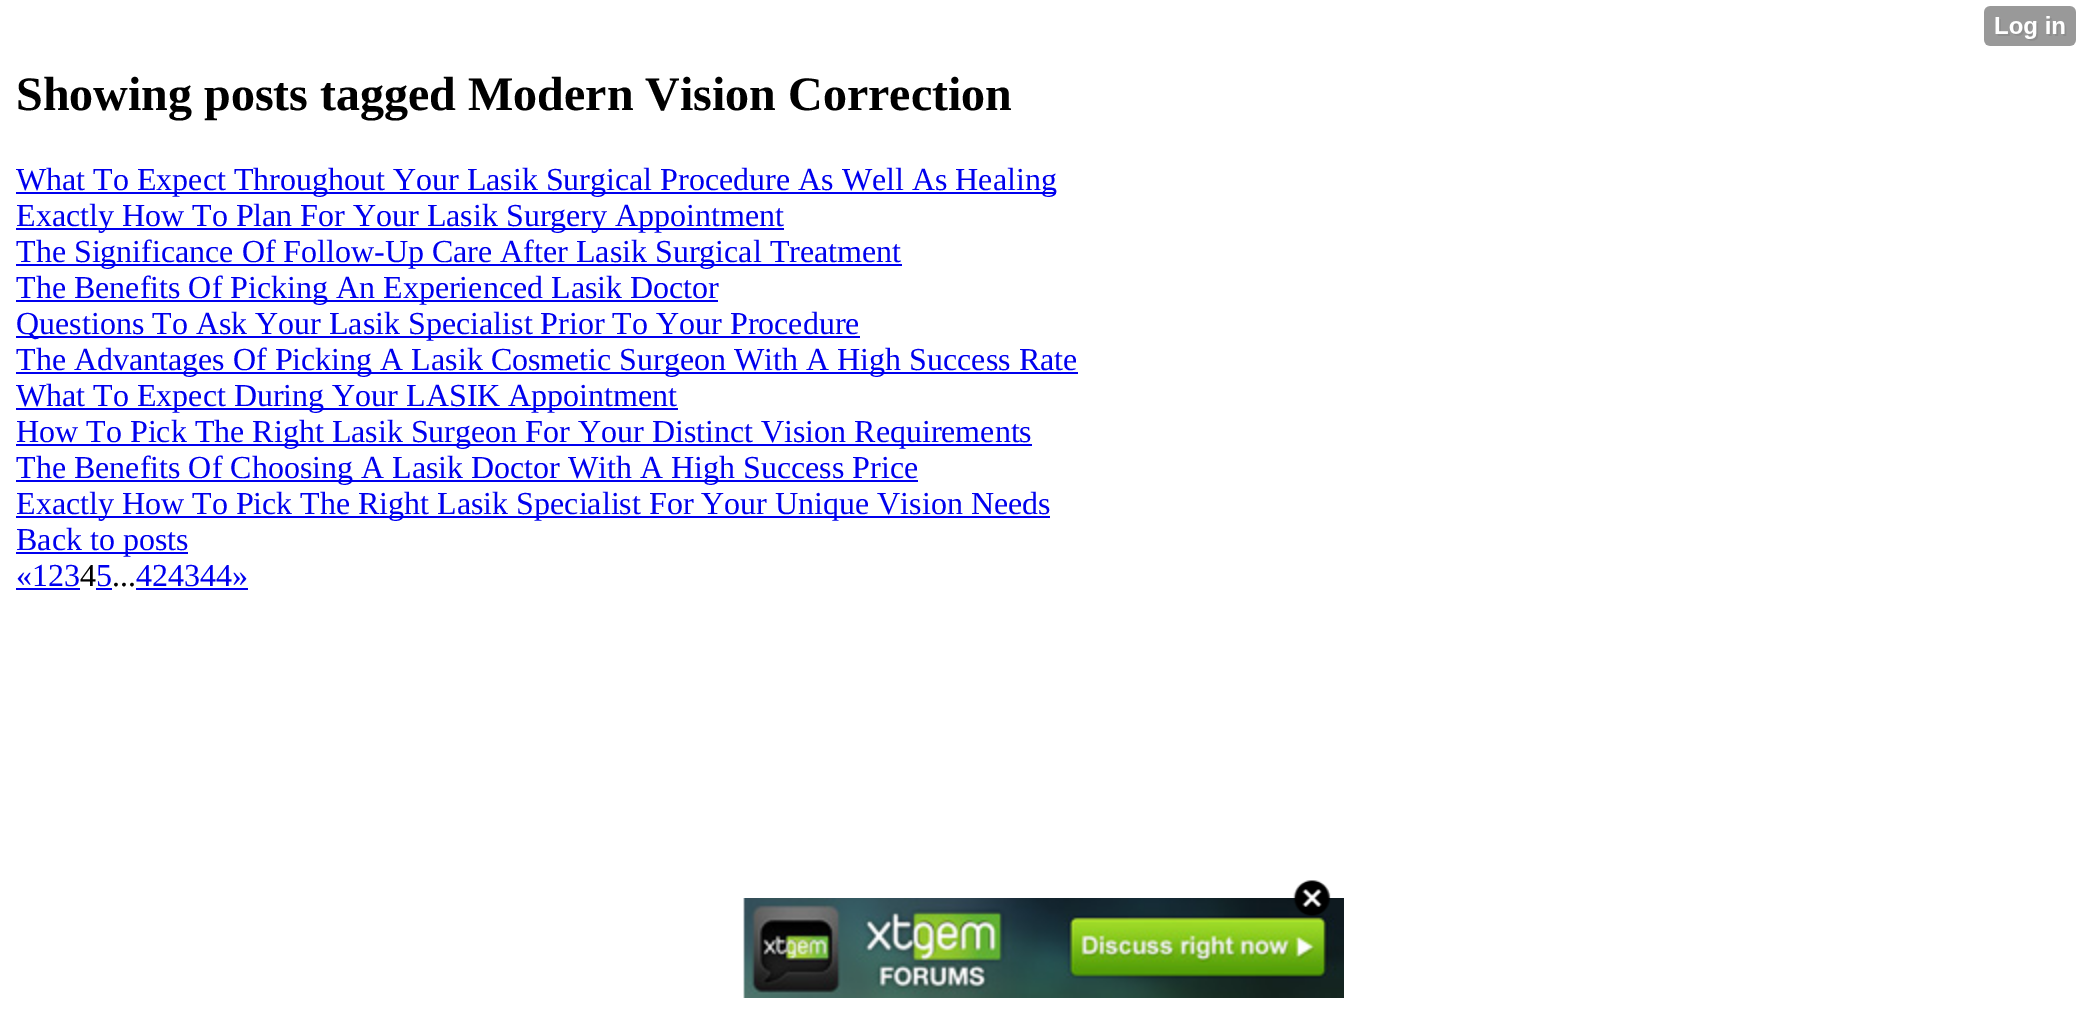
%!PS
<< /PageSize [2085 1019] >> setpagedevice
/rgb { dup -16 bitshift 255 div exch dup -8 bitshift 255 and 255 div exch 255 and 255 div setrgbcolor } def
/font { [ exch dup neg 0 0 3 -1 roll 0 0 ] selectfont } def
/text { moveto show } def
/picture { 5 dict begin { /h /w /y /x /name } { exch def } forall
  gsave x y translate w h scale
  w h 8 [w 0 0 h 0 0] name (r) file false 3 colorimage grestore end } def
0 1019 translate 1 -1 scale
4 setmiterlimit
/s1 { /LiberationSerif-Bold 48 font 16#000000 rgb } def
/s2 { /LiberationSerif-Regular 32 font 16#0000EE rgb } def
/s3 { /LiberationSerif-Regular 32 font 16#000000 rgb } def
16#FFFFFF rgb
0 0 2085 1019 rectfill
(pic1.raw) 1984 6 92 40 picture
s1
(Showing posts tagged Modern Vision Correction) 16 110 text
16#0000EE rgb
16 192 1040 2 rectfill
s2
(What To Expect Throughout Your Lasik Surgical Procedure As Well As Healing) 16 190 text
16 228 768 2 rectfill
(Exactly How To Plan For Your Lasik Surgery Appointment) 16 226 text
16 264 886 2 rectfill
(The Significance Of Follow-Up Care After Lasik Surgical Treatment) 16 262 text
16 300 702 2 rectfill
(The Benefits Of Picking An Experienced Lasik Doctor) 16 298 text
16 336 844 2 rectfill
(Questions To Ask Your Lasik Specialist Prior To Your Procedure) 16 334 text
16 372 1062 2 rectfill
(The Advantages Of Picking A Lasik Cosmetic Surgeon With A High Success Rate) 16 370 text
16 408 662 2 rectfill
(What To Expect During Your LASIK Appointment) 16 406 text
16 444 1016 2 rectfill
(How To Pick The Right Lasik Surgeon For Your Distinct Vision Requirements) 16 442 text
16 480 902 2 rectfill
(The Benefits Of Choosing A Lasik Doctor With A High Success Price) 16 478 text
16 516 1034 2 rectfill
(Exactly How To Pick The Right Lasik Specialist For Your Unique Vision Needs) 16 514 text
16 552 172 2 rectfill
(Back to posts) 16 550 text
(«123) 16 586 text
16 588 64 2 rectfill
s3
(4) 80 586 text
s2
(5) 96 586 text
96 588 16 2 rectfill
s3
(...) 112 586 text
s2
(424344») 136 586 text
136 588 112 2 rectfill
(pic3.raw) 743 898 601 100 picture
(pic2.raw) 1293 880 38 36 picture
showpage
